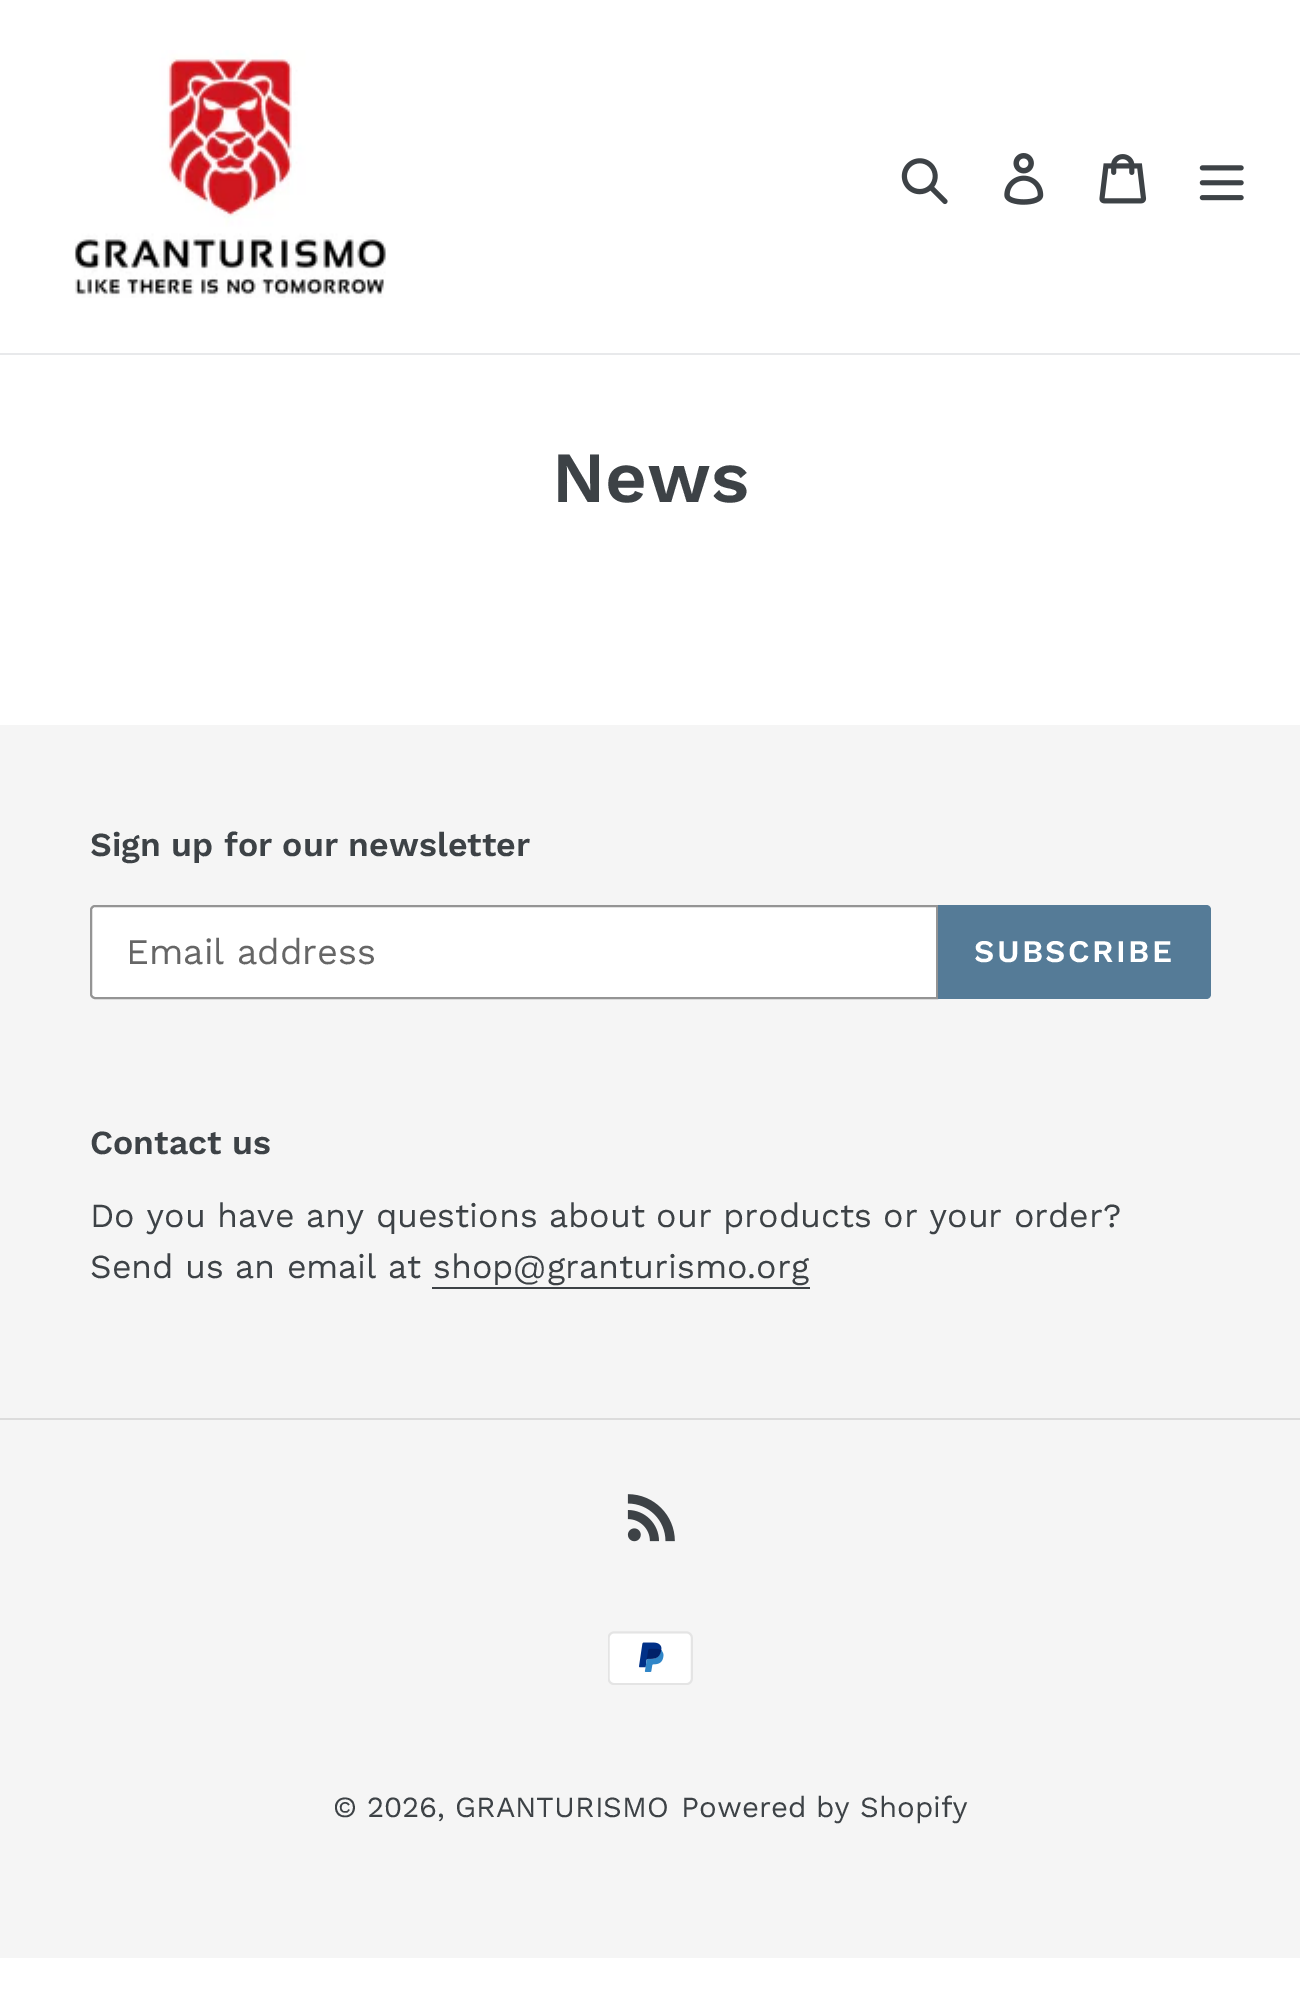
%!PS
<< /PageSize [1300 2004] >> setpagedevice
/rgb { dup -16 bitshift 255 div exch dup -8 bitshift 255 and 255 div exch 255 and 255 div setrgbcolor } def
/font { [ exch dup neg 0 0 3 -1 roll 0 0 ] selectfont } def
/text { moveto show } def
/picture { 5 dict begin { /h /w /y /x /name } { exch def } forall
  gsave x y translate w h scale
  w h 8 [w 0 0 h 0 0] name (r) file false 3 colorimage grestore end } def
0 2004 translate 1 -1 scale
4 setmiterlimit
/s1 { /WorkSans-SemiBold 72 font 16#3D4246 rgb } def
/s2 { /WorkSans-SemiBold 33.75 font 16#3D4246 rgb } def
/s3 { /WorkSans-Regular 36 font 16#666666 rgb } def
/s4 { /WorkSans-Regular 33.75 font 16#3D4246 rgb } def
/s5 { /WorkSans-Regular 29.25 font 16#3D4246 rgb } def
16#FFFFFF rgb
0 0 1300 2004 rectfill
16#E8E9EB rgb
0 353 1300 2 rectfill
(pic1.raw) 74 50 312 248 picture
(pic2.raw) 901 158 47 47 picture
(pic3.raw) 1004 153 40 52 picture
(pic4.raw) 1099 154 48 50 picture
(pic5.raw) 1199 165 45 36 picture
s1
(News) 552 502 text
16#F5F5F5 rgb
0 725 1300 1233 rectfill
s2
(Sign up for our newsletter) 90 856 text
16#FFFFFF rgb
95 906 moveto 937 906 lineto 937 998 lineto 95 998 lineto 93 998 91 996 91 994 curveto 91 910 lineto 91 908 93 906 95 906 curveto closepath gsave fill grestore
16#949494 rgb
2 setlinewidth
stroke
s3
(Email address) 126 964 text
16#557B97 rgb
938 905 moveto 1206 905 lineto 1209 905 1211 907 1211 910 curveto 1211 994 lineto 1211 997 1209 999 1206 999 curveto 938 999 lineto closepath fill
/WorkSans-SemiBold 31.5 font
16#FFFFFF rgb
974 962 moveto 2.5 0 (SUBSCRIBE) ashow
s2
(Contact us) 90 1154 text
s4
(Do you have any questions about our products or your order?) 90 1227 text
(Send us an email at shop@granturismo.org) 90 1278 text
432 1287 378 2 rectfill
16#DCDCDC rgb
0 1418 1300 2 rectfill
(pic6.raw) 627 1494 48 48 picture
(pic7.raw) 608 1631 85 54 picture
s5
(© 2026, GRANTURISMO) 333 1817 text
(Powered by Shopify) 681 1817 text
showpage
